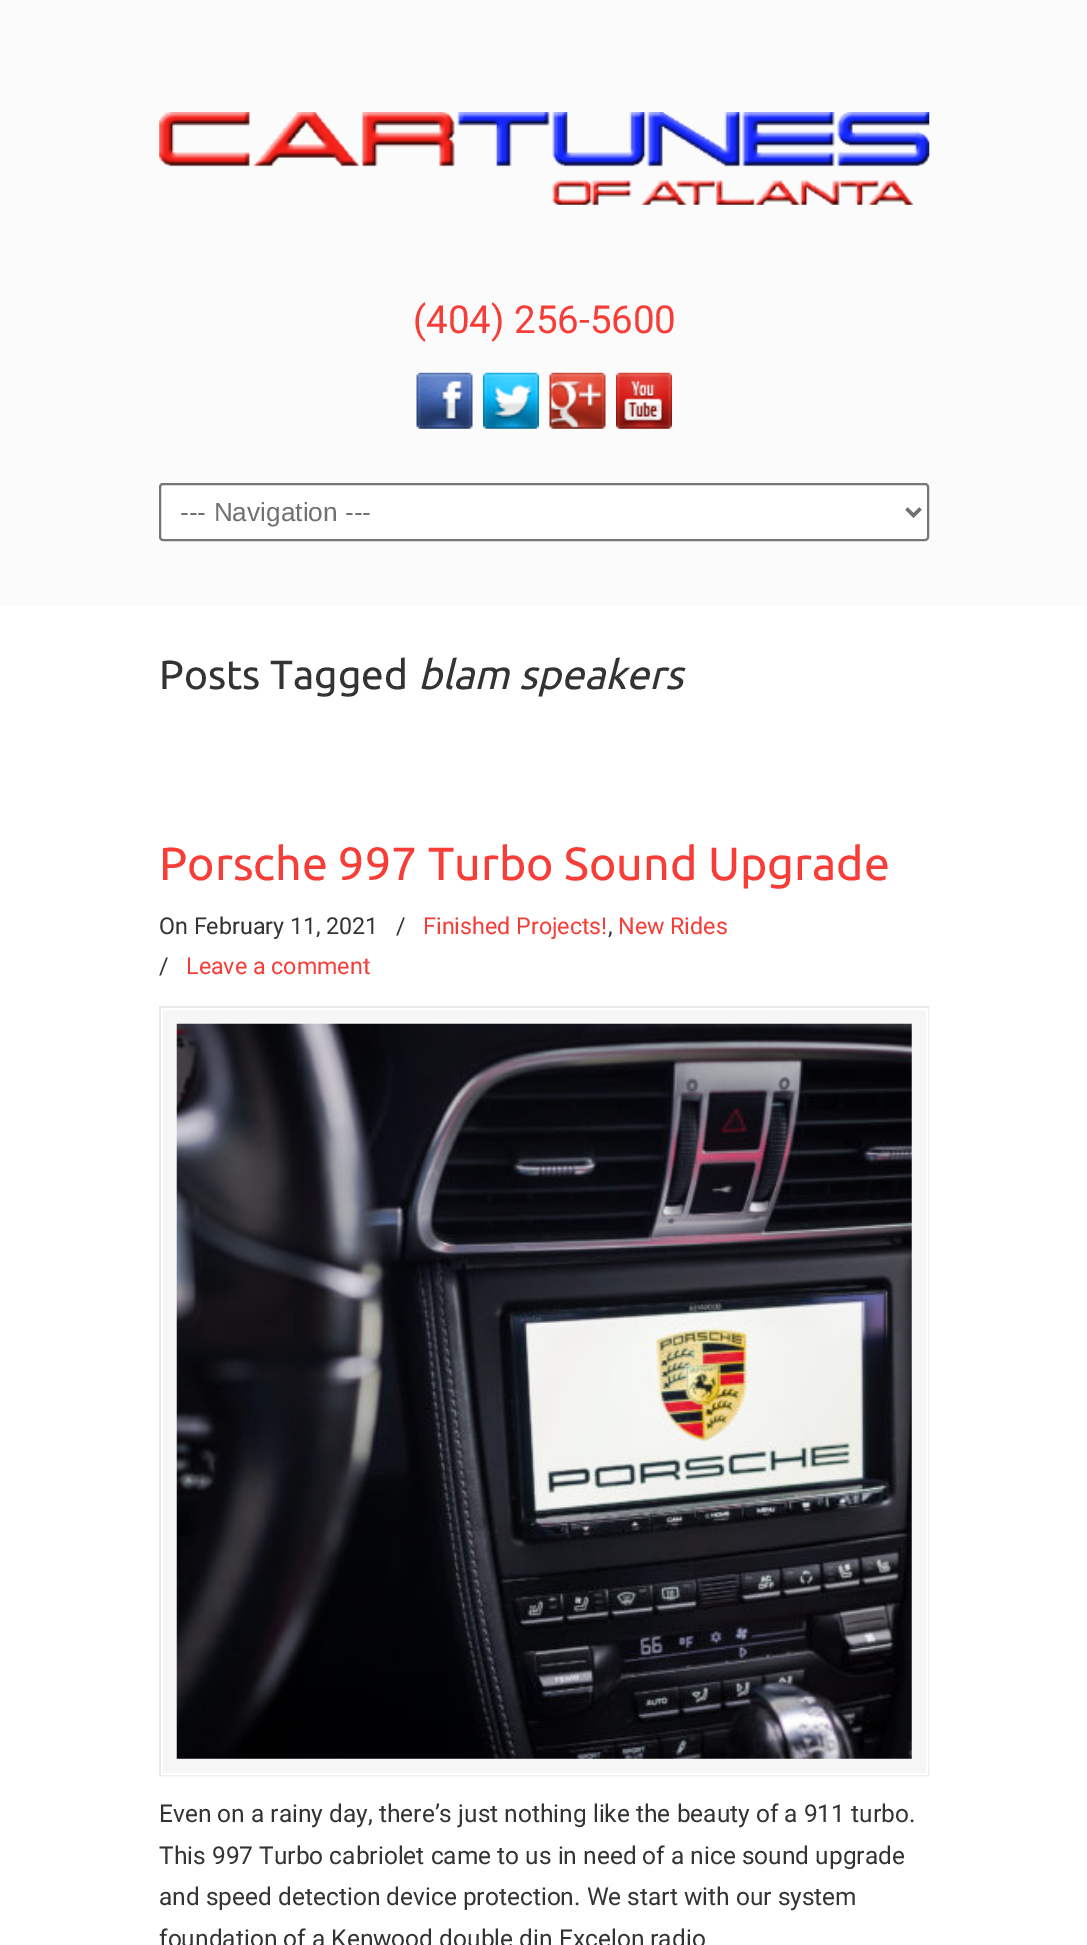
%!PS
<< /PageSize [1087 1945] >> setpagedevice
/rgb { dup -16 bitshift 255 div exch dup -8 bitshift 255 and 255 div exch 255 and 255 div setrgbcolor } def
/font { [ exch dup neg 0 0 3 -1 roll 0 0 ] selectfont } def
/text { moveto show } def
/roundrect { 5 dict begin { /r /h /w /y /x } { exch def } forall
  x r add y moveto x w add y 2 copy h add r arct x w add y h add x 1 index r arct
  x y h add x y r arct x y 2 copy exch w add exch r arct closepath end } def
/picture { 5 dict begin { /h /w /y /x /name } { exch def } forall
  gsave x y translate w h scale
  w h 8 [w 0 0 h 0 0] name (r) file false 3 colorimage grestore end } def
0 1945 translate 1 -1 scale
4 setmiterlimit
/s1 { /Roboto-Regular 38.5 font 16#F63D37 rgb } def
/s2 { /LiberationSans-Regular 26.25 font 16#717171 rgb } def
/s3 { /Ubuntu-Regular 40.75 font 16#333333 rgb } def
/s4 { /Ubuntu-Italic 40.75 font 16#333333 rgb } def
/s5 { /Ubuntu-Regular 46.5 font 16#F63D37 rgb } def
/s6 { /Roboto-Regular 23.25 font 16#333333 rgb } def
/s7 { /Roboto-Regular 23.25 font 16#F63D37 rgb } def
/s8 { /Roboto-Regular 24.5 font 16#333333 rgb } def
16#FBFBFB rgb
0 0 1087 1945 rectfill
(pic1.raw) 159 112 771 93 picture
s1
(\(404\) 256-5600) 413 333 text
(pic2.raw) 416 372 57 57 picture
(pic3.raw) 483 372 56 57 picture
(pic4.raw) 549 372 57 57 picture
(pic5.raw) 616 372 56 57 picture
16#FFFFFF rgb
160 484 768 56 3 roundrect gsave fill grestore
16#767676 rgb
2 setlinewidth
stroke
16#717171 rgb
3.5 setlinewidth
906.5 508.5 moveto 913.5 515.5 lineto 920.5 508.5 lineto stroke
s2
(--- Navigation ---) 180 521 text
16#FFFFFF rgb
0 606 1087 1339 rectfill
s3
(Posts Tagged) 159 689 text
s4
(blam speakers) 418 689 text
s5
(Porsche 997 Turbo Sound Upgrade) 159 880 text
s6
(On February 11, 2021) 159 934 text
(/) 396 934 text
s7
(Finished Projects!) 423 934 text
s6
(,) 608 934 text
s7
(New Rides) 618 934 text
s6
(/) 159 974 text
s7
(Leave a comment) 186 974 text
16#F6F6F6 rgb
163 1010 763 763 rectfill
16#EAEAEA rgb
2 setlinewidth
160 1007 768 768 rectstroke
16#FFFFFF rgb
162 1009 765 765 rectstroke
(pic6.raw) 176 1023 736 736 picture
s8
(Even on a rainy day, there’s just nothing like the beauty of a 911 turbo.) 159 1822 text
(This 997 Turbo cabriolet came to us in need of a nice sound upgrade) 159 1864 text
(and speed detection device protection. We start with our system) 159 1905 text
(foundation of a Kenwood double din Excelon radio) 159 1947 text
showpage
